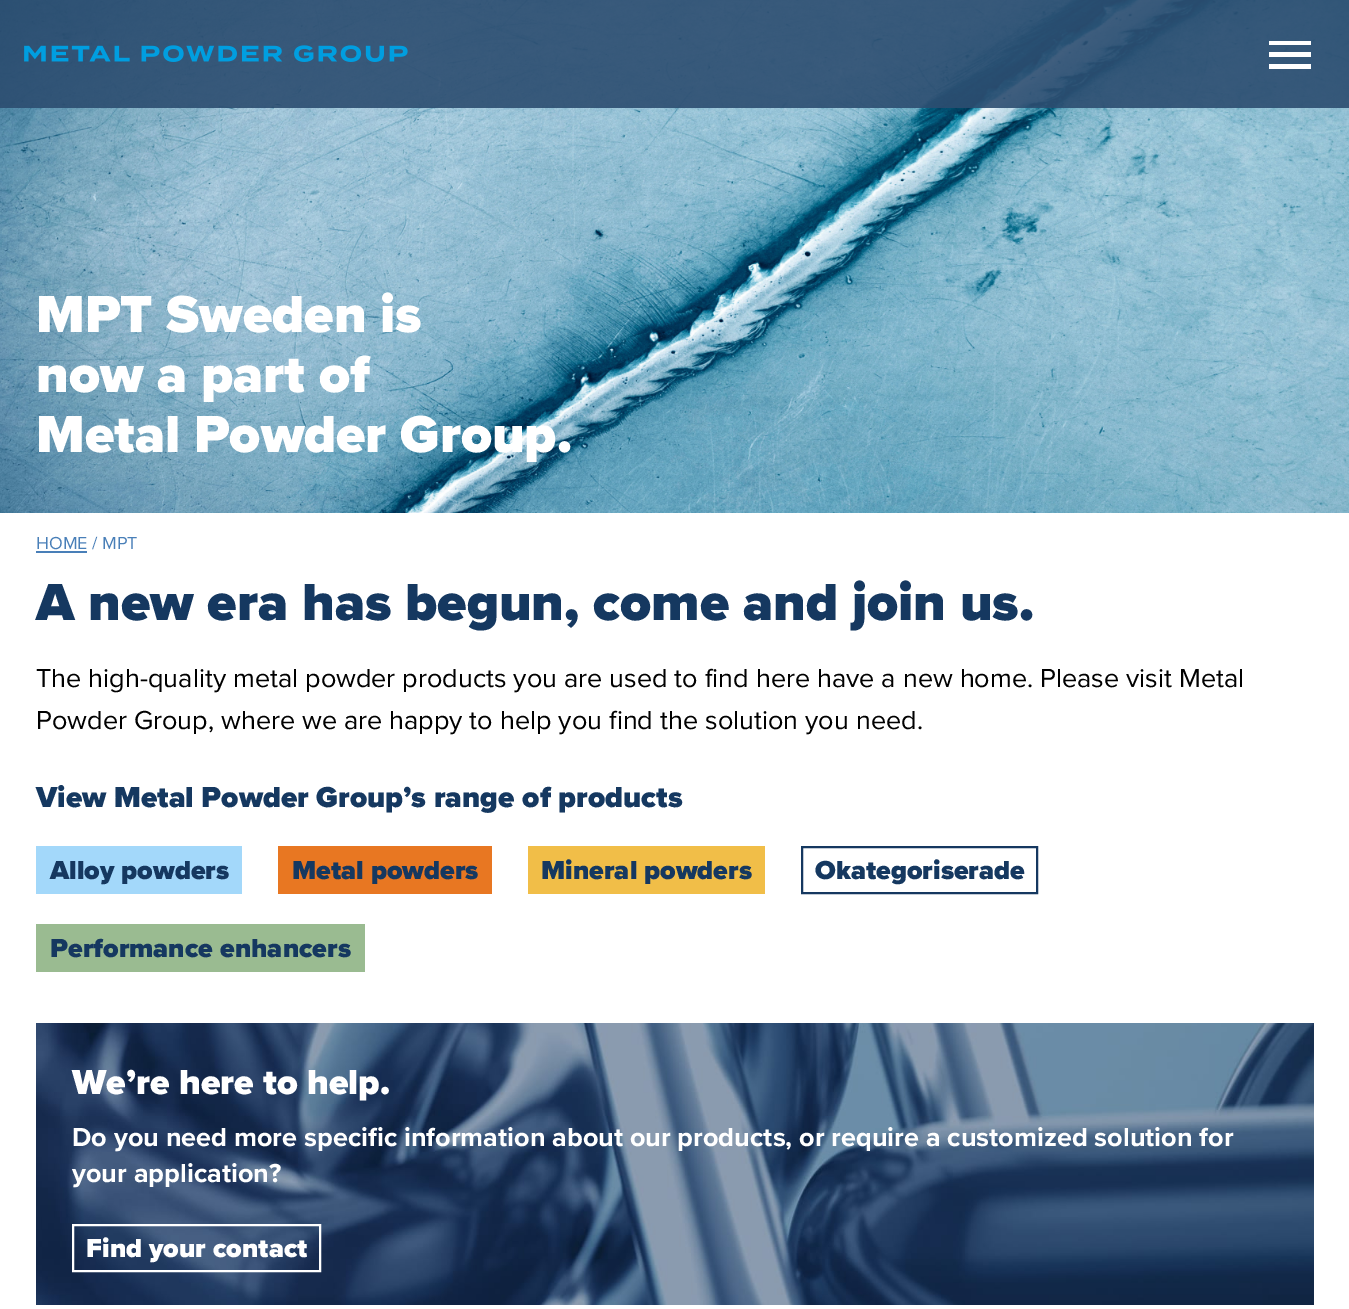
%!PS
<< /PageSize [1349 1309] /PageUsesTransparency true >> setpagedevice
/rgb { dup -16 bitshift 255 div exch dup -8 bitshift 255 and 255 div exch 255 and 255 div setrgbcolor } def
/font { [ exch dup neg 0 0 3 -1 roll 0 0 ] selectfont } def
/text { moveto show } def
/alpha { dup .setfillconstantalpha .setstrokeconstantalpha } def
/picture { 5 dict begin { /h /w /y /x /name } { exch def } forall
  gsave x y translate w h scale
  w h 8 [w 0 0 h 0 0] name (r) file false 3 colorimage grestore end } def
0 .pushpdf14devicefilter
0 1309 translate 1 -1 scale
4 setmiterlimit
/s1 { /ProximaNova-Black 54 font 16#FFFFFF rgb } def
/s2 { /ProximaNova-Regular 18 font 16#497FB8 rgb } def
/s3 { /ProximaNova-Black 54 font 16#153860 rgb } def
/s4 { /ProximaNova-Regular 27 font 16#000000 rgb } def
/s5 { /ProximaNova-Black 30 font 16#153860 rgb } def
/s6 { /ProximaNova-Black 27 font 16#153860 rgb } def
/s7 { /ProximaNova-Black 36 font 16#FFFFFF rgb } def
/s8 { /ProximaNova-Bold 27 font 16#FFFFFF rgb } def
/s9 { /ProximaNova-Black 27 font 16#FFFFFF rgb } def
16#FFFFFF rgb
0 0 1349 1309 rectfill
(pic2.raw) 0 0 1349 513 picture
0.9 alpha
16#2C4D70 rgb
0 0 1349 108 rectfill
1 alpha
(pic1.raw) 24 45 384 17 picture
gsave
1269 41 42 28 rectclip
16#FFFFFF rgb
1269 40 moveto 1311 40 lineto 1311 45 lineto 1269 45 lineto closepath 1269 52 moveto 1311 52 lineto 1311 57 lineto 1269 57 lineto closepath 1269 64 moveto 1311 64 lineto 1311 69 lineto 1269 69 lineto closepath fill
grestore
s1
(MPT Sweden is) 36 332 text
(now a part of) 36 392 text
(Metal Powder Group.) 36 452 text
s2
(HOME / MPT) 36 549 text
36 551 51 2 rectfill
s3
(A new era has begun, come and join us.) 36 620 text
s4
(The high-quality metal powder products you are used to find here have a new home. Please visit Metal) 36 687 text
(Powder Group, where we are happy to help you find the solution you need.) 36 729 text
s5
(View Metal Powder Group’s range of products) 36 807 text
16#A3D8FA rgb
36 846 206 48 rectfill
s6
(Alloy powders) 50 879 text
16#E87722 rgb
278 846 214 48 rectfill
s6
(Metal powders) 292 879 text
16#F1BE48 rgb
528 846 237 48 rectfill
s6
(Mineral powders) 541 879 text
2 setlinewidth
802 847 235 46 rectstroke
(Okategoriserade) 815 879 text
16#9ABB91 rgb
36 924 329 48 rectfill
s6
(Performance enhancers) 50 957 text
(pic3.raw) 36 1023 1278 282 picture
s7
(We’re here to help.) 72 1094 text
s8
(Do you need more specific information about our products, or require a customized solution for) 72 1146 text
(your application?) 72 1182 text
73 1225 247 46 rectstroke
s9
(Find your contact) 86 1257 text
.poppdf14devicefilter showpage
